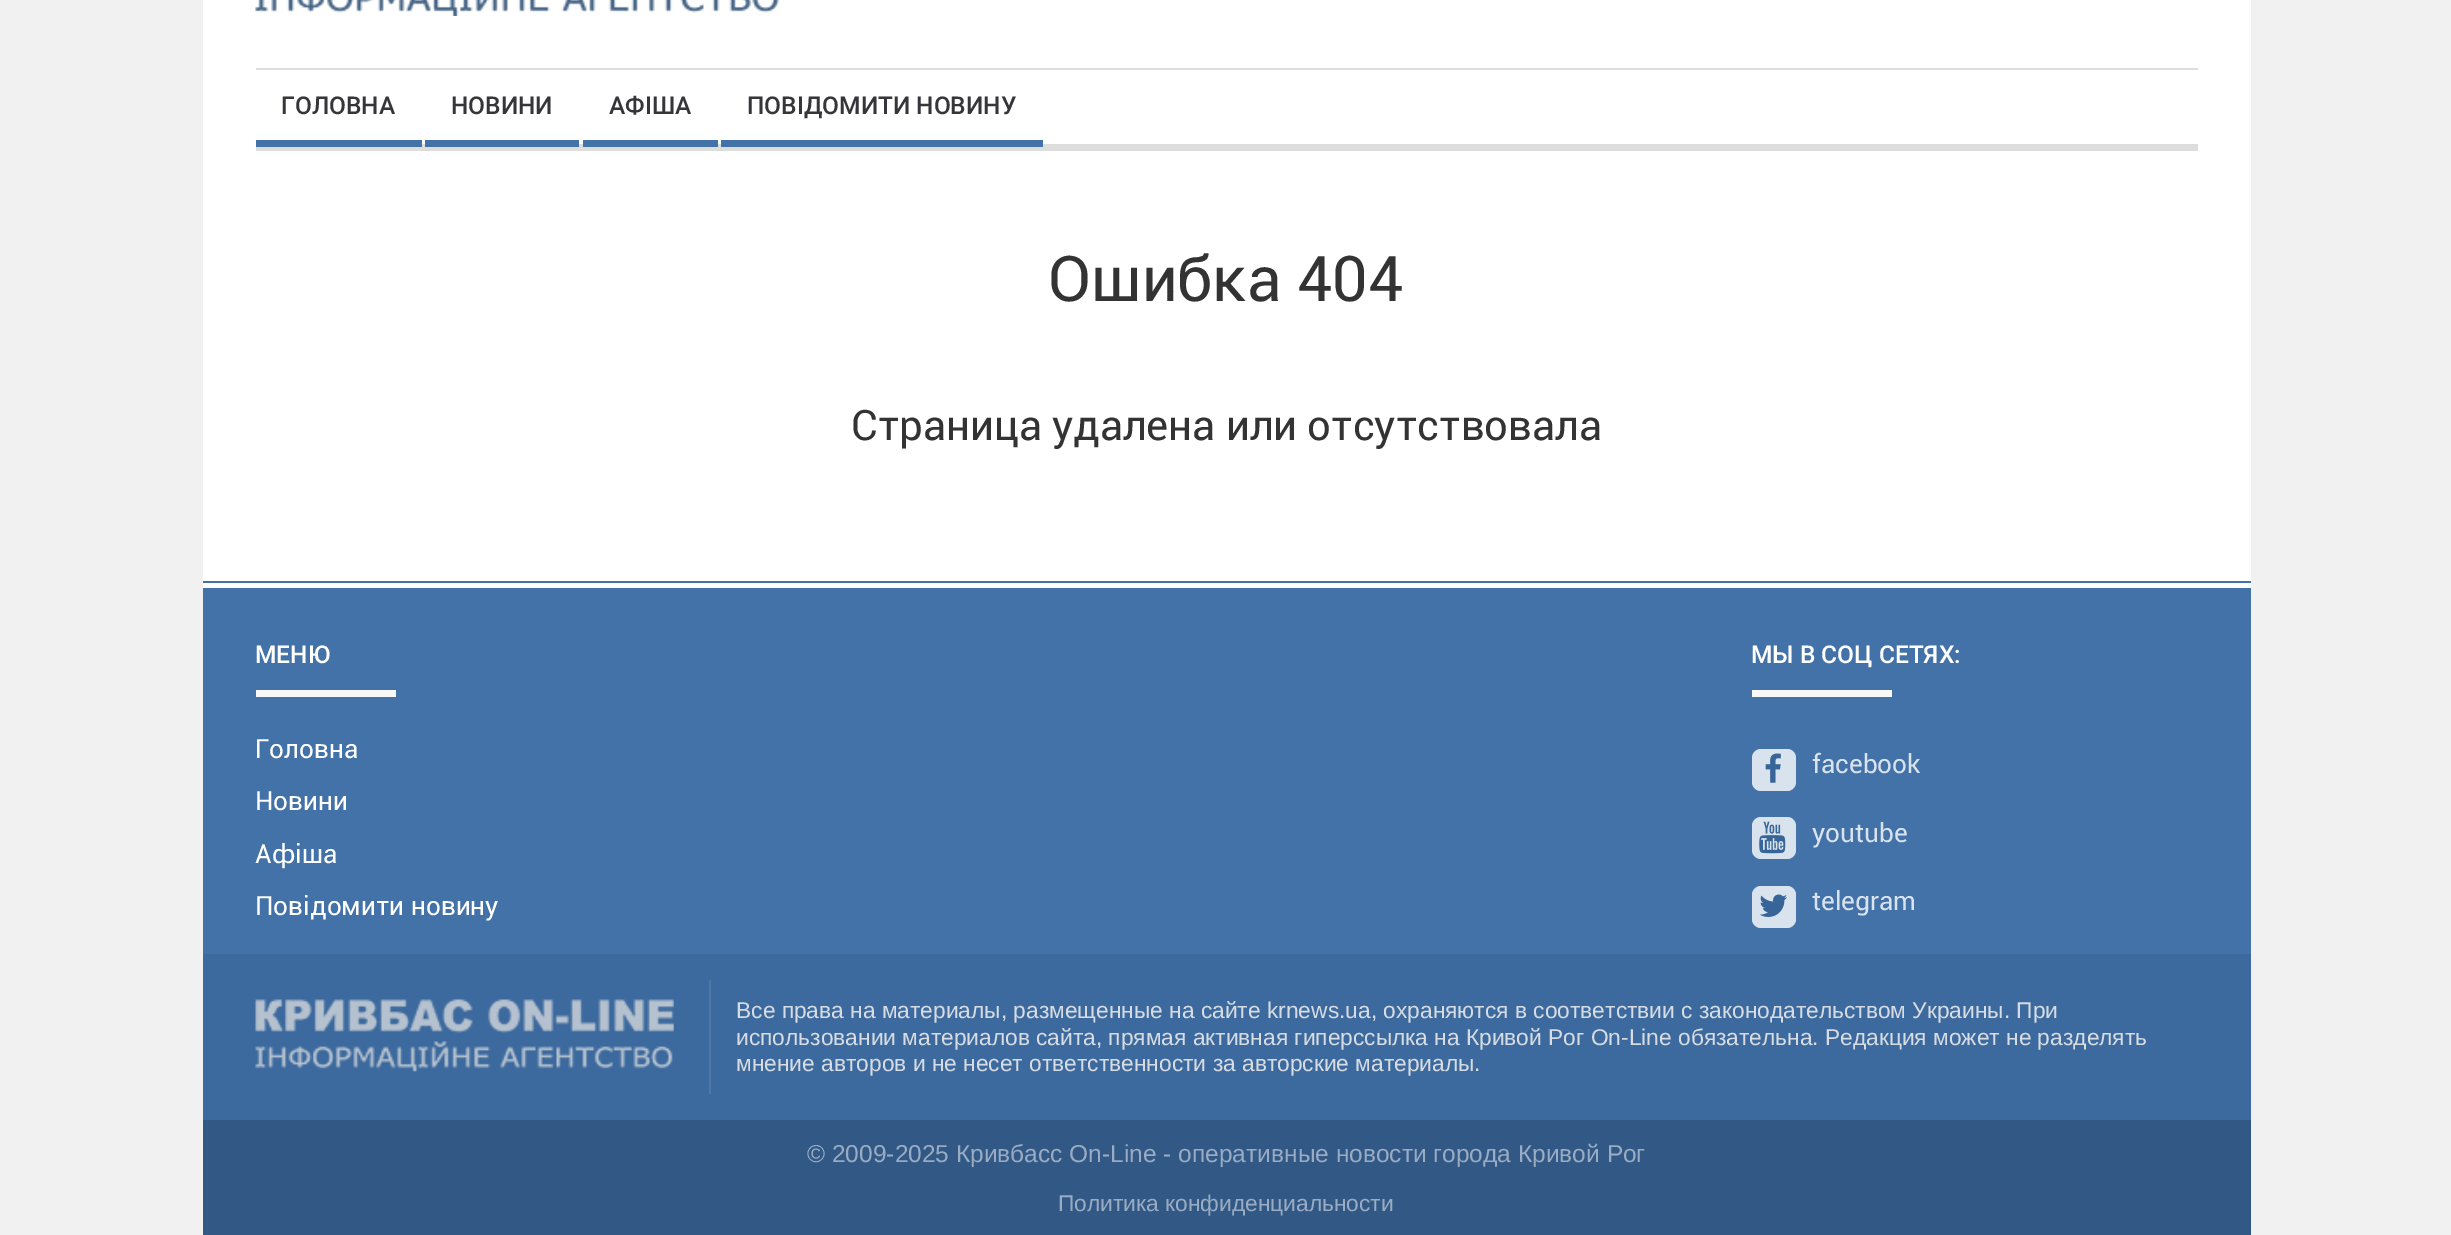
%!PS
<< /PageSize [2451 1235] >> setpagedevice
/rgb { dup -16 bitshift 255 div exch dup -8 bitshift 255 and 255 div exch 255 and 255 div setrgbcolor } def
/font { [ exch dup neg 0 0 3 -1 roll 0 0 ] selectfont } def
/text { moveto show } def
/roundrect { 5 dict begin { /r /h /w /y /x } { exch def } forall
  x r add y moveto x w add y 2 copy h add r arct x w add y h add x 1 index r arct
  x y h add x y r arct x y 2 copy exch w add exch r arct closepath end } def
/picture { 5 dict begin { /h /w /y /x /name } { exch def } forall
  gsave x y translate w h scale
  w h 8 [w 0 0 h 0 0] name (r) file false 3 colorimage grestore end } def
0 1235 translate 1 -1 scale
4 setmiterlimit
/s1 { /Roboto-Medium 24.5 font 16#36353A rgb } def
/s2 { /Roboto-Regular 63 font 16#333333 rgb } def
/s3 { /Roboto-Regular 42 font 16#333333 rgb } def
/s4 { /Roboto-Medium 24.5 font 16#FFFFFF rgb } def
/s5 { /Roboto-Regular 26.25 font 16#FFFFFF rgb } def
/s6 { /Roboto-Regular 26.25 font 16#D9E3EE rgb } def
/s7 { /LiberationSans-Regular 22.75 font 16#D6DCE2 rgb } def
/s8 { /LiberationSans-Regular 24.5 font 16#99ACC3 rgb } def
/s9 { /LiberationSans-Regular 22.75 font 16#99ACC3 rgb } def
16#F1F1F1 rgb
0 0 2451 1235 rectfill
16#FFFFFF rgb
203 0 2048 588 rectfill
(pic1.raw) 255 0 525 16 picture
16#DDDDDD rgb
256 68 1942 2 rectfill
256 144 1942 7 rectfill
16#4372A8 rgb
256 140 166 7 rectfill
s1
(ГОЛОВНА) 281 114 text
16#4372A8 rgb
425 140 154 7 rectfill
s1
(НОВИНИ) 451 114 text
16#4372A8 rgb
583 140 135 7 rectfill
s1
(АФІША) 609 114 text
16#4372A8 rgb
721 140 322 7 rectfill
s1
(ПОВІДОМИТИ НОВИНУ) 747 114 text
s2
(Ошибка 404) 1048 301 text
s3
(Страница удалена или отсутствовала) 851 440 text
16#4372A8 rgb
203 588 2048 366 rectfill
203 581 2048 2 rectfill
s4
(МЕНЮ) 255 663 text
16#F8F8F8 rgb
256 690 140 7 rectfill
s5
(Головна) 255 758 text
(Новини) 255 810 text
(Афіша) 255 863 text
(Повідомити новину) 255 915 text
s4
(МЫ В СОЦ СЕТЯХ:) 1751 663 text
16#F8F8F8 rgb
1752 690 140 7 rectfill
16#D9E3EE rgb
1752 749 44 42 9 roundrect fill
(pic2.raw) 1765 753 16 30 picture
s6
(facebook) 1812 773 text
1752 817 44 42 9 roundrect fill
(pic3.raw) 1759 821 27 33 picture
(youtube) 1812 842 text
1752 886 44 42 9 roundrect fill
(pic4.raw) 1759 894 28 23 picture
(telegram) 1812 910 text
16#3D6A9E rgb
203 954 2048 166 rectfill
(pic5.raw) 255 999 419 73 picture
16#4E77A6 rgb
709 980 2 114 rectfill
s7
(Все права на материалы, размещенные на сайте krnews.ua, охраняются в соответствии с законодательством Украины. При) 736 1018 text
(использовании материалов сайта, прямая активная гиперссылка на Кривой Рог On-Line обязательна. Редакция может не разделять) 736 1045 text
(мнение авторов и не несет ответственности за авторские материалы.) 736 1071 text
16#325986 rgb
203 1120 2048 115 rectfill
s8
(© 2009-2025 Кривбасс On-Line - оперативные новости города Кривой Рог) 807 1162 text
s9
(Политика конфиденциальности) 1058 1211 text
showpage
